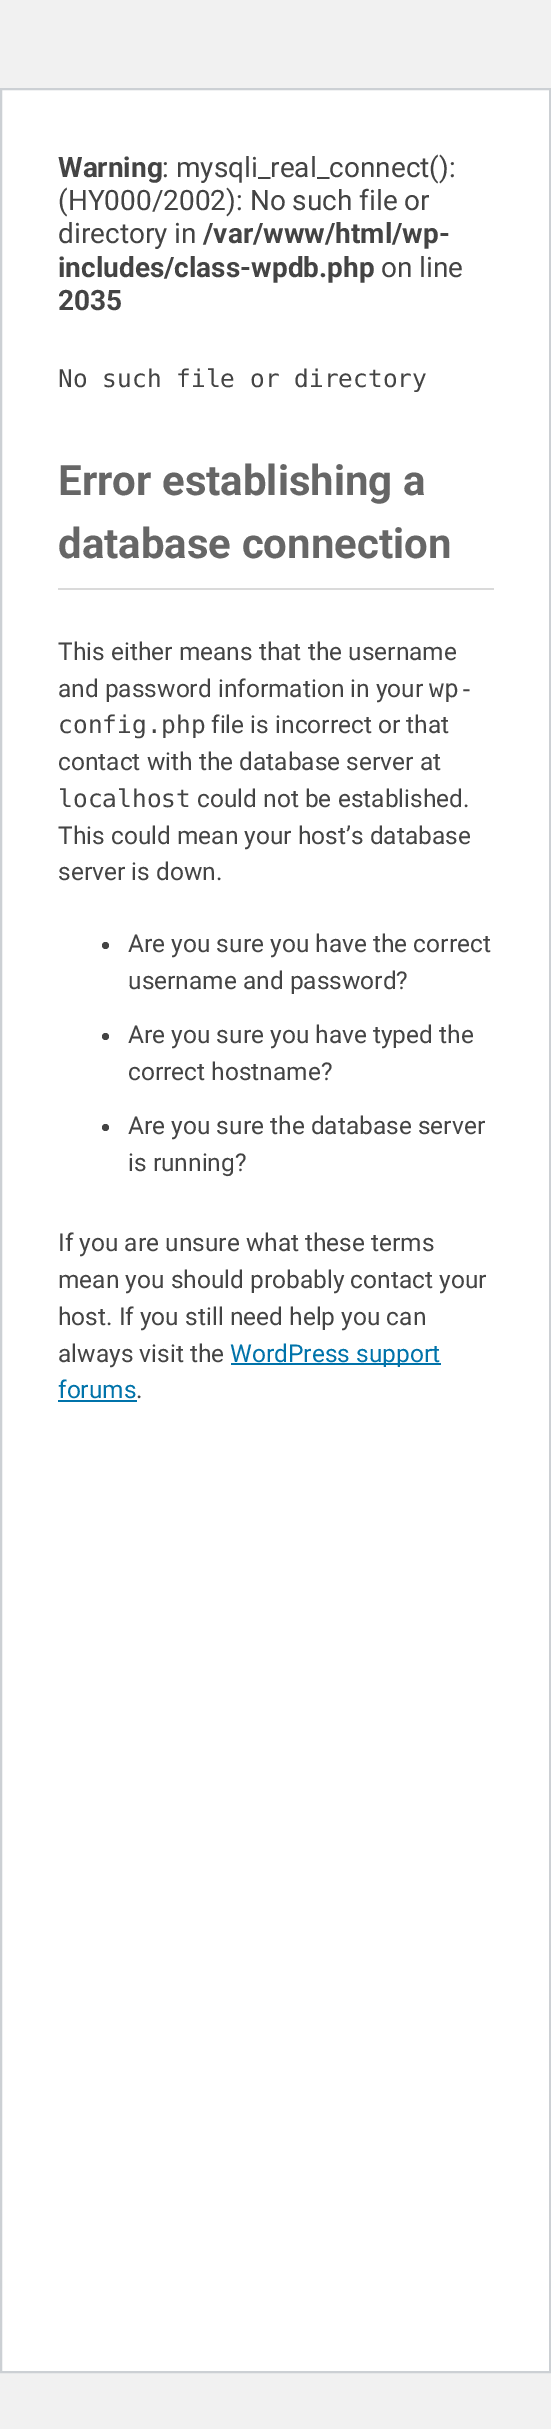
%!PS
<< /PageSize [551 2429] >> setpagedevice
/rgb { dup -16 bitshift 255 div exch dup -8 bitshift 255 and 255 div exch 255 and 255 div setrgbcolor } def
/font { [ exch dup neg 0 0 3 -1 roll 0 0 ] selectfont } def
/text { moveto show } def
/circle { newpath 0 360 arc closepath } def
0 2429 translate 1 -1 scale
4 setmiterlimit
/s1 { /Roboto-Bold 28 font 16#444444 rgb } def
/s2 { /Roboto-Regular 28 font 16#444444 rgb } def
/s3 { /DejaVuSansMono-Regular 24.5 font 16#444444 rgb } def
/s4 { /Roboto-Bold 42 font 16#666666 rgb } def
/s5 { /Roboto-Regular 24.5 font 16#444444 rgb } def
/s6 { /Roboto-Regular 24.5 font 16#0073AA rgb } def
16#F1F1F1 rgb
0 0 551 2429 rectfill
16#FFFFFF rgb
1 89 moveto 550 89 lineto 550 2372 lineto 1 2372 lineto closepath gsave fill grestore
16#CCD0D4 rgb
2 setlinewidth
stroke
s1
(Warning) 58 177 text
s2
(: mysqli_real_connect\(\):) 162 177 text
(\(HY000/2002\): No such file or) 58 210 text
(directory in) 58 243 text
s1
(/var/www/html/wp-) 203 243 text
(includes/class-wpdb.php) 58 277 text
s2
(on line) 381 277 text
s1
(2035) 58 310 text
s3
(No such file or directory) 58 387 text
16#DADADA rgb
58 588 436 2 rectfill
s4
(Error establishing a) 58 495 text
(database connection) 58 558 text
s5
(This either means that the username) 58 660 text
(and password information in your) 58 697 text
s3
(wp-) 429 697 text
(config.php) 58 733 text
s5
(file is incorrect or that) 211 733 text
(contact with the database server at) 58 770 text
s3
(localhost) 58 807 text
s5
(could not be established.) 197 807 text
(This could mean your host’s database) 58 844 text
(server is down.) 58 880 text
105.5 945.5 3.5 circle fill
(Are you sure you have the correct) 128 952 text
(username and password?) 128 989 text
105.5 1036.5 3.5 circle fill
(Are you sure you have typed the) 128 1043 text
(correct hostname?) 128 1080 text
105.5 1127.5 3.5 circle fill
(Are you sure the database server) 128 1134 text
(is running?) 128 1171 text
(If you are unsure what these terms) 58 1251 text
(mean you should probably contact your) 58 1288 text
(host. If you still need help you can) 58 1325 text
(always visit the) 58 1362 text
16#0073AA rgb
231 1363 210 2 rectfill
(WordPress support) 230 1362 text
(forums) 58 1398 text
58 1400 79 2 rectfill
s5
(.) 136 1398 text
showpage
